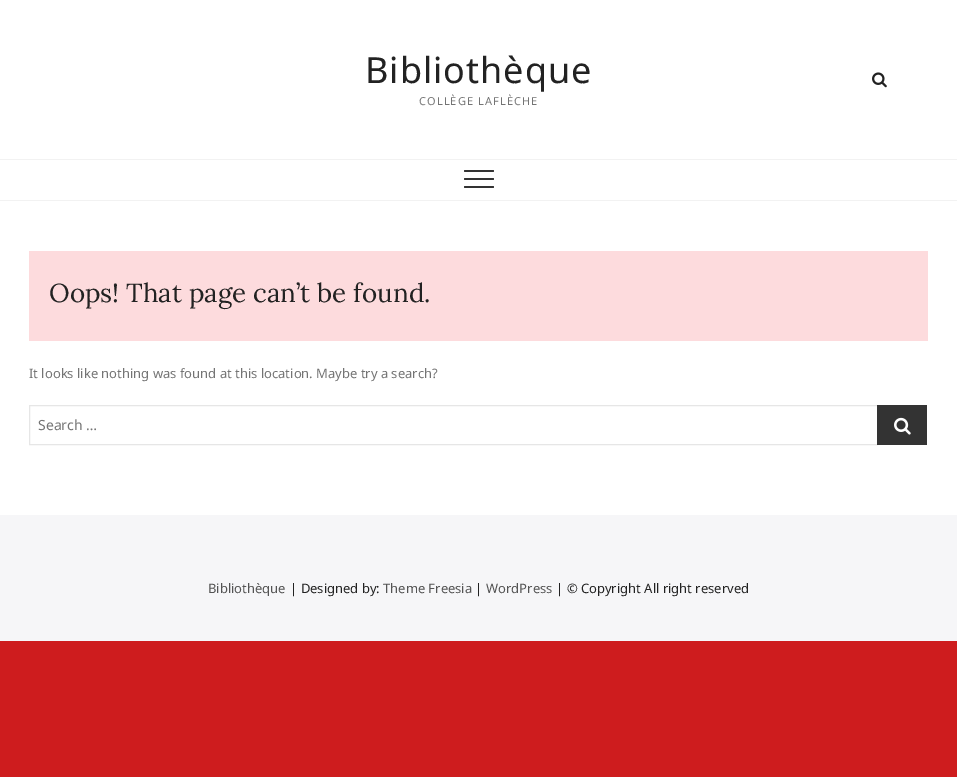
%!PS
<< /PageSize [957 777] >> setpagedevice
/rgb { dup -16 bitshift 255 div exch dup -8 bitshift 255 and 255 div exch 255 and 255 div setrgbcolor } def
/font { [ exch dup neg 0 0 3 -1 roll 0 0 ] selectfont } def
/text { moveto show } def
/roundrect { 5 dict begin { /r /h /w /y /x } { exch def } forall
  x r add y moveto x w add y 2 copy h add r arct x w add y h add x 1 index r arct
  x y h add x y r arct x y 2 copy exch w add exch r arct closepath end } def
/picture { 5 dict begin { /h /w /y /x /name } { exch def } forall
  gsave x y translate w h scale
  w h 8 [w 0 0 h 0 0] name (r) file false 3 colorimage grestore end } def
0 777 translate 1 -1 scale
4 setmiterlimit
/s1 { /Lora-Regular 26 font 16#222222 rgb } def
/s2 { /NotoSans-Regular 13 font 16#747474 rgb } def
/s3 { /NotoSans-Regular 14 font 16#747474 rgb } def
/s4 { /NotoSans-Regular 13 font 16#545454 rgb } def
/s5 { /NotoSans-Regular 13 font 16#222222 rgb } def
16#CE1C1E rgb
0 0 957 777 rectfill
16#FFFFFF rgb
0 0 957 515 rectfill
/NotoSans-Regular 36 font
16#222222 rgb
365 83 moveto 1 0 (Bibliothèque) ashow
/NotoSans-Regular 11 font
16#747474 rgb
419 105 moveto 1.1 0 (COLLÈGE LAFLÈCHE) ashow
(pic1.raw) 872 72 15 16 picture
16#F2F2F2 rgb
0 159 957 1 rectfill
0 200 957 1 rectfill
16#333333 rgb
464 178 30 2 1 roundrect fill
464 170 30 2 1 roundrect fill
464 186 30 2 1 roundrect fill
16#FDDBDD rgb
29 251 899 90 rectfill
s1
(Oops! That page can’t be found.) 49 302 text
s2
(It looks like nothing was found at this location. Maybe try a search?) 29 378 text
16#E6E6E6 rgb
29.5 405.5 848 39 rectstroke
s3
(Search …) 38 430 text
16#333333 rgb
877 405 50 40 rectfill
(pic2.raw) 894 417 17 18 picture
16#F6F6F8 rgb
0 515 957 126 rectfill
s4
(Bibliothèque) 208 593 text
s5
(| Designed by:) 290 593 text
s4
(Theme Freesia) 383 593 text
s5
(|) 475 593 text
s4
(WordPress) 486 593 text
s5
(| © Copyright All right reserved) 556 593 text
showpage
